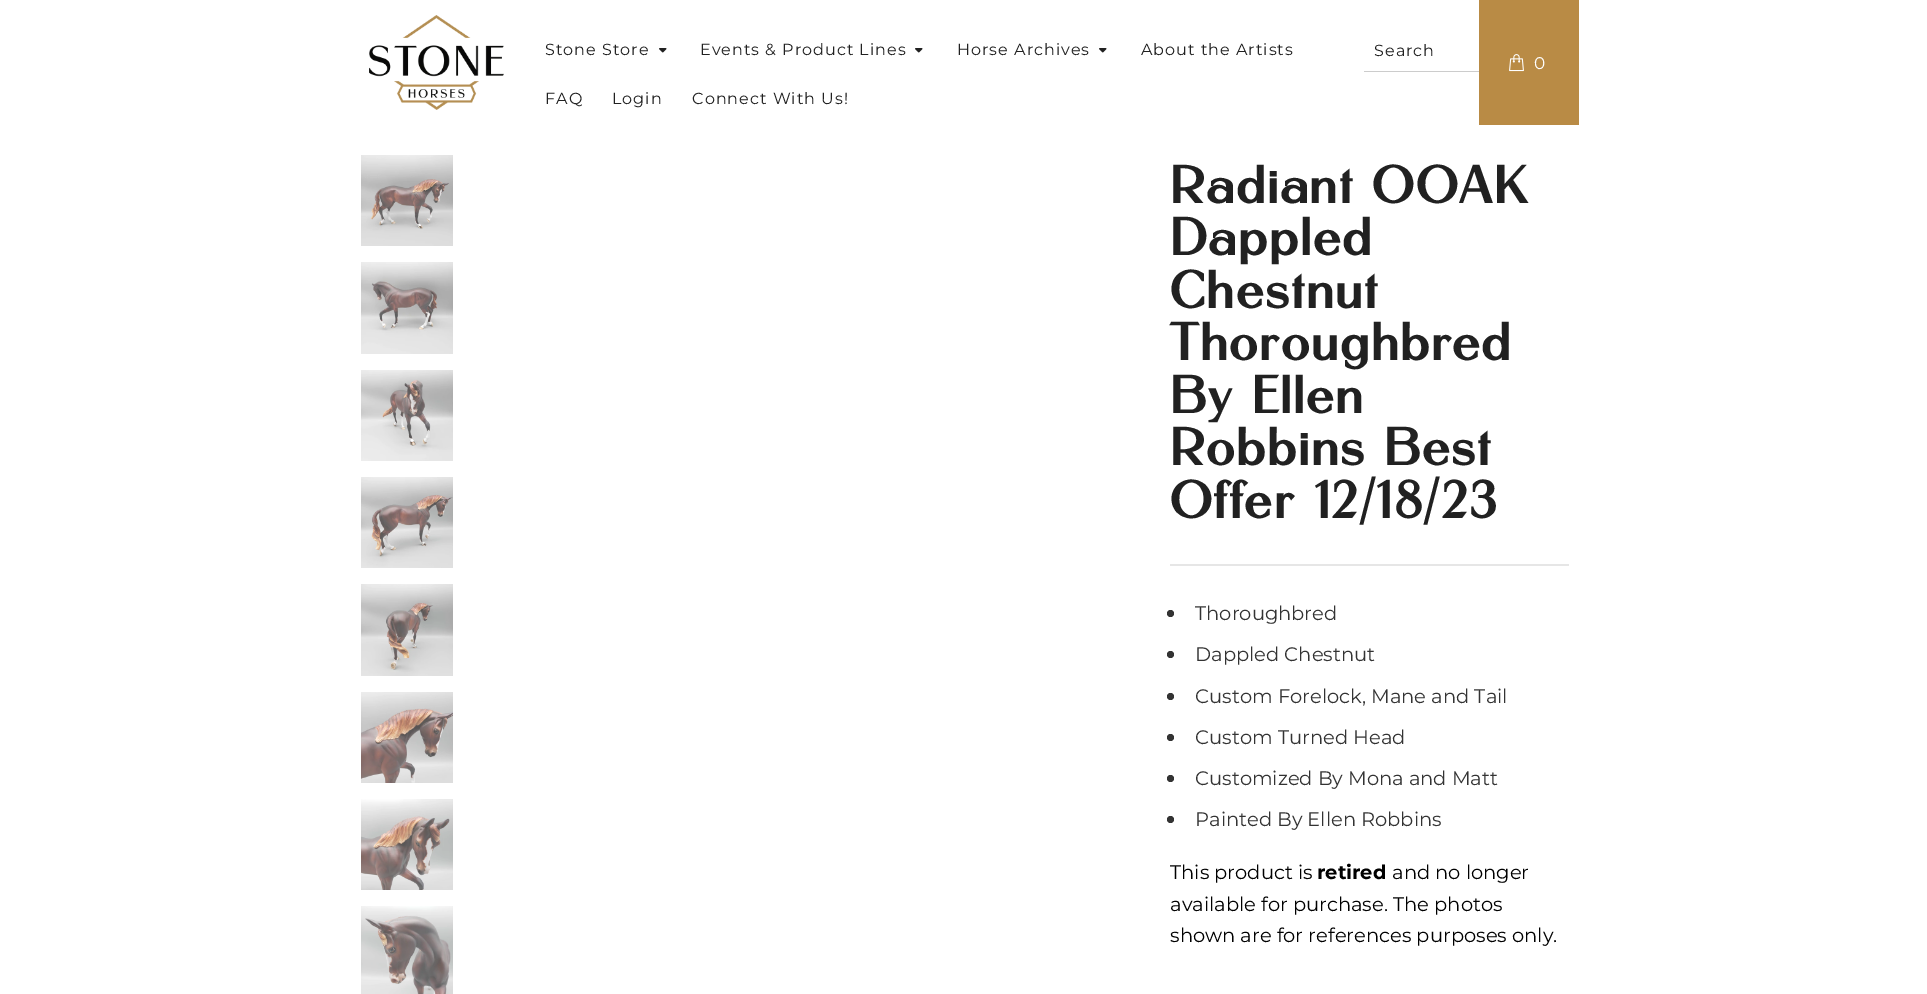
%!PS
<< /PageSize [1927 994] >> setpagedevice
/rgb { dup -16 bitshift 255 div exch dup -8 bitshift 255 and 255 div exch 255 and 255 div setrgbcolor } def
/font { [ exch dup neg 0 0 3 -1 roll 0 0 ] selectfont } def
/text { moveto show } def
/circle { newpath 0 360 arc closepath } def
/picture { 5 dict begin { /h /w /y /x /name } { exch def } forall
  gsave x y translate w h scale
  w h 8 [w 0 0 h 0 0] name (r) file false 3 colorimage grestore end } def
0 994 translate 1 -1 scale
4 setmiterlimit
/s1 { /Montserrat-Regular 19.5 font 16#333333 rgb } def
/s2 { /Montserrat-Regular 19.5 font 16#000000 rgb } def
/s3 { /Montserrat-Bold 19.5 font 16#000000 rgb } def
16#FFFFFF rgb
0 0 1927 994 rectfill
(pic1.raw) 369 15 135 95 picture
/Montserrat-Regular 16 font
16#212121 rgb
545 55 moveto 1 0 (Stone Store) ashow
(pic2.raw) 659 48 8 5 picture
700 55 moveto 1 0 (Events & Product Lines) ashow
(pic2.raw) 915 48 8 5 picture
957 55 moveto 1 0 (Horse Archives) ashow
(pic2.raw) 1099 48 8 5 picture
1141 55 moveto 1 0 (About the Artists) ashow
545 104 moveto 1 0 (FAQ) ashow
612 104 moveto 1 0 (Login) ashow
692 104 moveto 1 0 (Connect With Us!) ashow
16#CCCCCC rgb
1364 71 115 1 rectfill
16#212121 rgb
1374 56 moveto 1 0 (Search) ashow
16#B98B45 rgb
1479 0 100 125 rectfill
(pic3.raw) 1509 54 15 18 picture
/Montserrat-Regular 17 font
16#FFFFFF rgb
1534 69 moveto 1 0 (0) ashow
(pic4.raw) 361 155 92 91 picture
(pic5.raw) 361 262 92 92 picture
(pic6.raw) 361 370 92 91 picture
(pic7.raw) 361 477 92 91 picture
(pic8.raw) 361 584 92 92 picture
(pic9.raw) 361 692 92 91 picture
(pic10.raw) 361 799 92 91 picture
(pic11.raw) 361 906 92 88 picture
/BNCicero-Bold 52.5 font
16#212121 rgb
1170 203 moveto 2 0 (Radiant OOAK) ashow
1170 255 moveto 2 0 (Dappled) ashow
1170 308 moveto 2 0 (Chestnut) ashow
1170 360 moveto 2 0 (Thoroughbred) ashow
1170 413 moveto 2 0 (By Ellen) ashow
1170 465 moveto 2 0 (Robbins Best) ashow
1170 518 moveto 2 0 (Offer 12/18/23) ashow
16#E6E6E6 rgb
1170 564 399 2 rectfill
16#333333 rgb
1170.5 613.5 3.5 circle fill
s1
(Thoroughbred) 1195 620 text
1170.5 654.5 3.5 circle fill
(Dappled Chestnut) 1195 661 text
1170.5 696.5 3.5 circle fill
(Custom Forelock, Mane and Tail) 1195 703 text
1170.5 737.5 3.5 circle fill
(Custom Turned Head) 1195 744 text
1170.5 778.5 3.5 circle fill
(Customized By Mona and Matt) 1195 785 text
1170.5 819.5 3.5 circle fill
(Painted By Ellen Robbins) 1195 826 text
s2
(This product is) 1170 879 text
s3
(retired) 1317 879 text
s2
(and no longer) 1392 879 text
(available for purchase. The photos) 1170 911 text
(shown are for references purposes only.) 1170 942 text
showpage
